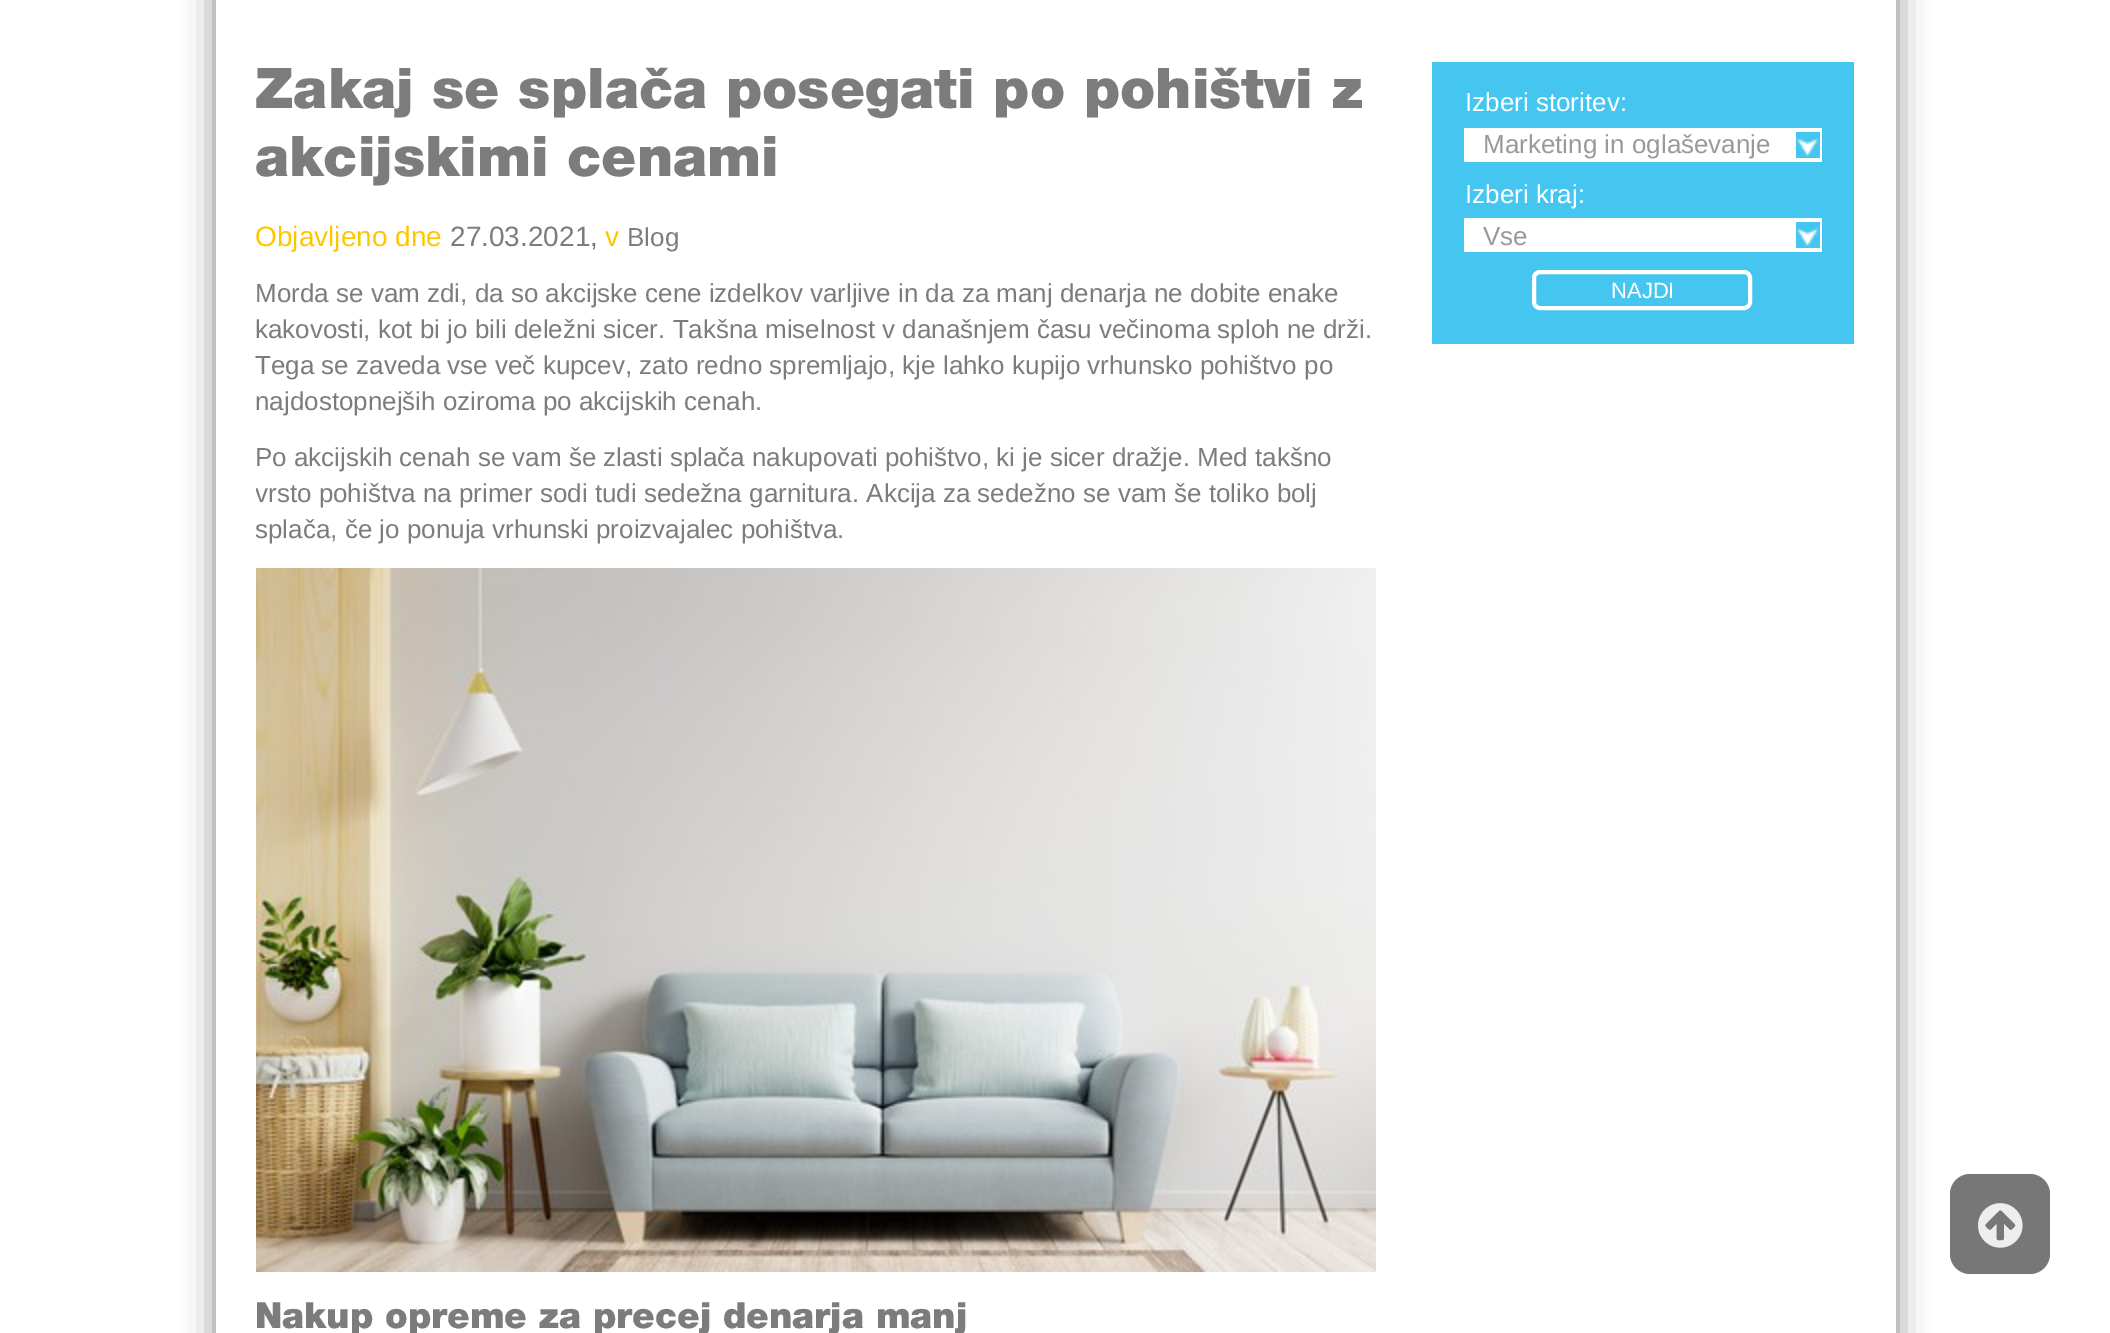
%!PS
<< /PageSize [2110 1333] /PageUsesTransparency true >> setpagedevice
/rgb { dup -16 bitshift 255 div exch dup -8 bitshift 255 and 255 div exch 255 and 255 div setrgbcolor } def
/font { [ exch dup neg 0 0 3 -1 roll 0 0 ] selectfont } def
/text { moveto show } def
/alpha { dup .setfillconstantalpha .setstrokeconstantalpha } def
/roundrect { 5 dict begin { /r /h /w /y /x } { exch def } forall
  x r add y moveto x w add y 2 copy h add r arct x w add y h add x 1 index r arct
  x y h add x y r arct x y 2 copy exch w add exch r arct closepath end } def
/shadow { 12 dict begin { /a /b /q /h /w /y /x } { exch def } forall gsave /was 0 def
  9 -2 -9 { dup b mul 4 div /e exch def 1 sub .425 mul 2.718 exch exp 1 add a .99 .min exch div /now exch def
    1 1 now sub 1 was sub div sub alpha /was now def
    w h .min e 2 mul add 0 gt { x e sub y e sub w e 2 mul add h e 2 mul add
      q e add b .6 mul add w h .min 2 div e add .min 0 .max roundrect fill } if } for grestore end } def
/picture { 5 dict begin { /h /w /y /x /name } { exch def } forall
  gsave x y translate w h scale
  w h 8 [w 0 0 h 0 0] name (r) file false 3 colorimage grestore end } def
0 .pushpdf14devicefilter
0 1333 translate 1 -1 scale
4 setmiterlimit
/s1 { /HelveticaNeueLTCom-Black 56 font 16#7C7C7B rgb } def
/s2 { /LiberationSans-Regular 28 font 16#FFC600 rgb } def
/s3 { /LiberationSans-Regular 28 font 16#7C7C7B rgb } def
/s4 { /LiberationSans-Regular 26 font 16#7C7C7B rgb } def
/s5 { /HelveticaNeueLTCom-Black 36 font 16#7C7C7B rgb } def
/s6 { /LiberationSans-Regular 26 font 16#FFFFFF rgb } def
/s7 { /LiberationSans-Regular 26 font 16#999999 rgb } def
/s8 { /LiberationSans-Regular 22 font 16#FFFFFF rgb } def
16#FFFFFF rgb
0 0 2110 1333 rectfill
gsave
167 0 moveto 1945 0 lineto 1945 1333 lineto 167 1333 lineto closepath 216 -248 moveto 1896 -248 lineto 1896 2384 lineto 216 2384 lineto closepath eoclip newpath
16#808080 rgb
216 -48 1680 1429 0 16 1 shadow
grestore
s1
(Zakaj se splača posegati po pohištvi z) 255 108 text
(akcijskimi cenami) 255 176 text
s2
(Objavljeno dne) 255 246 text
s3
(27.03.2021,) 450 246 text
s2
(v) 605 246 text
s4
(Blog) 627 246 text
(Morda se vam zdi, da so akcijske cene izdelkov varljive in da za manj denarja ne dobite enake) 255 302 text
(kakovosti, kot bi jo bili deležni sicer. Takšna miselnost v današnjem času večinoma sploh ne drži.) 255 338 text
(Tega se zaveda vse več kupcev, zato redno spremljajo, kje lahko kupijo vrhunsko pohištvo po) 255 374 text
(najdostopnejših oziroma po akcijskih cenah.) 255 410 text
(Po akcijskih cenah se vam še zlasti splača nakupovati pohištvo, ki je sicer dražje. Med takšno) 255 466 text
gsave
256 198 1120 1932 rectclip
(vrsto pohištva na primer sodi tudi sedežna garnitura. Akcija za sedežno se vam še toliko bolj) 255 502 text
grestore
(splača, če jo ponuja vrhunski proizvajalec pohištva.) 255 538 text
(pic1.raw) 256 568 1120 704 picture
s5
(Nakup opreme za precej denarja manj) 255 1328 text
16#45C6F0 rgb
1432 62 422 282 rectfill
s6
(Izberi storitev:) 1465 111 text
1464 128 358 34 rectfill
(pic2.raw) 1796 132 24 26 picture
s7
(Marketing in oglaševanje) 1483 153 text
s6
(Izberi kraj:) 1465 203 text
1464 218 358 34 rectfill
(pic2.raw) 1796 222 24 26 picture
s7
(Vse) 1483 245 text
16#FFFFFF rgb
4 setlinewidth
1534 272 216 36 6 roundrect stroke
s8
(NAJDI) 1611 298 text
16#777777 rgb
1950 1174 100 100 20 roundrect fill
(pic3.raw) 1978 1203 45 45 picture
.poppdf14devicefilter showpage
